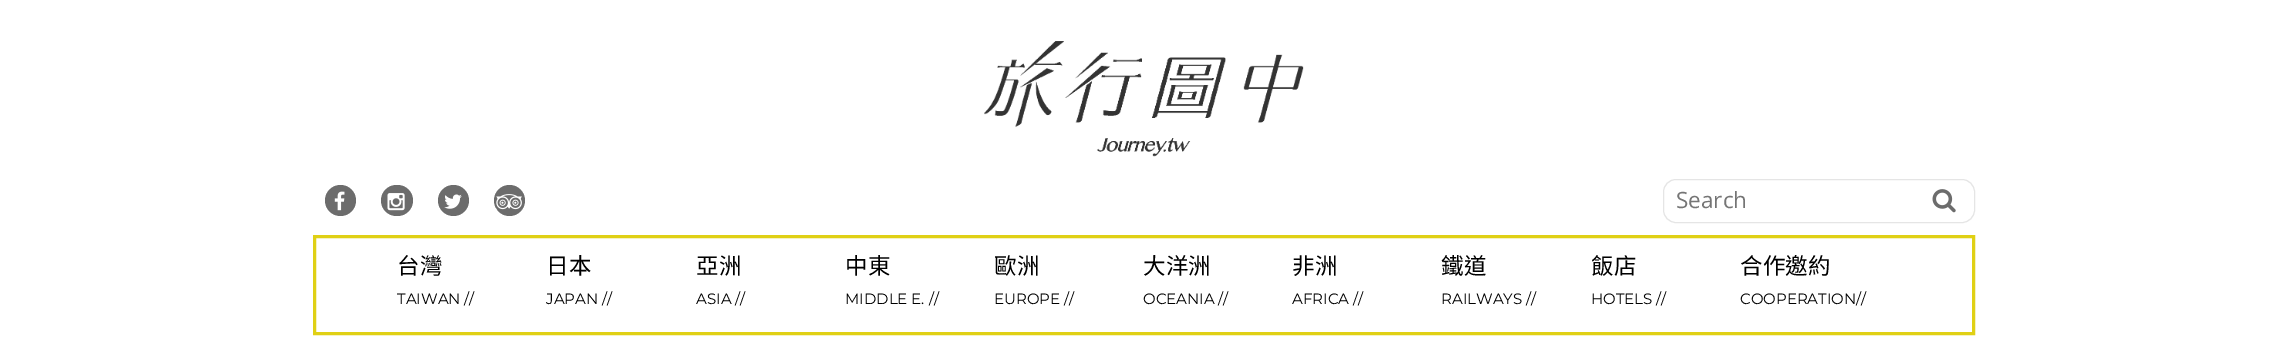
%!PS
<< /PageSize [2286 352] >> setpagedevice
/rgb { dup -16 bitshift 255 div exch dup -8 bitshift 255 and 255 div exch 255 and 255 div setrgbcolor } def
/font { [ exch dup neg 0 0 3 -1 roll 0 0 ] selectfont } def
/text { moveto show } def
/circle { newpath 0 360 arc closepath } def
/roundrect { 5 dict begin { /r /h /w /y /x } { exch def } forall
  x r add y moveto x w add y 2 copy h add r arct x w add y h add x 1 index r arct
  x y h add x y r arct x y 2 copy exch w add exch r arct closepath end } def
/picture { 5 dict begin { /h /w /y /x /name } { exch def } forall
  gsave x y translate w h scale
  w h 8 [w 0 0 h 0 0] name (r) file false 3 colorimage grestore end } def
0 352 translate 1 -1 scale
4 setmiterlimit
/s1 { /OpenSans-Regular 22.5 font 16#757575 rgb } def
/s2 { /NotoSansCJKTC-Regular 22.5 font 16#000000 rgb } def
/s3 { /Montserrat-Regular 15 font 16#000000 rgb } def
16#FFFFFF rgb
0 0 2286 352 rectfill
(pic1.raw) 984 41 320 116 picture
16#6C6C6C rgb
340.5 200.5 15.5 circle fill
(pic2.raw) 334 191 11 20 picture
381 185 32 31 15.5 roundrect fill
(pic3.raw) 387 193 18 18 picture
453.5 200.5 15.5 circle fill
(pic4.raw) 444 194 18 15 picture
509.5 200.5 15.5 circle fill
(pic5.raw) 496 194 26 16 picture
16#E5E5E5 rgb
1663.5 179.5 311 43 12.5 roundrect stroke
s1
(Search) 1676 208 text
(pic6.raw) 1932 189 24 24 picture
16#E0D014 rgb
3 setlinewidth
314.5 236.5 1659 97 rectstroke
s2
(台灣) 397 274 text
s3
(TAIWAN //) 397 304 text
s2
(日本) 546 274 text
s3
(JAPAN //) 546 304 text
s2
(亞洲) 696 274 text
s3
(ASIA //) 696 304 text
s2
(中東) 845 274 text
s3
(MIDDLE E. //) 845 304 text
s2
(歐洲) 994 274 text
s3
(EUROPE //) 994 304 text
s2
(大洋洲) 1143 274 text
s3
(OCEANIA //) 1143 304 text
s2
(非洲) 1292 274 text
s3
(AFRICA //) 1292 304 text
s2
(鐵道) 1441 274 text
s3
(RAILWAYS //) 1441 304 text
s2
(飯店) 1591 274 text
s3
(HOTELS //) 1591 304 text
s2
(合作邀約) 1740 274 text
s3
(COOPERATION//) 1740 304 text
showpage
